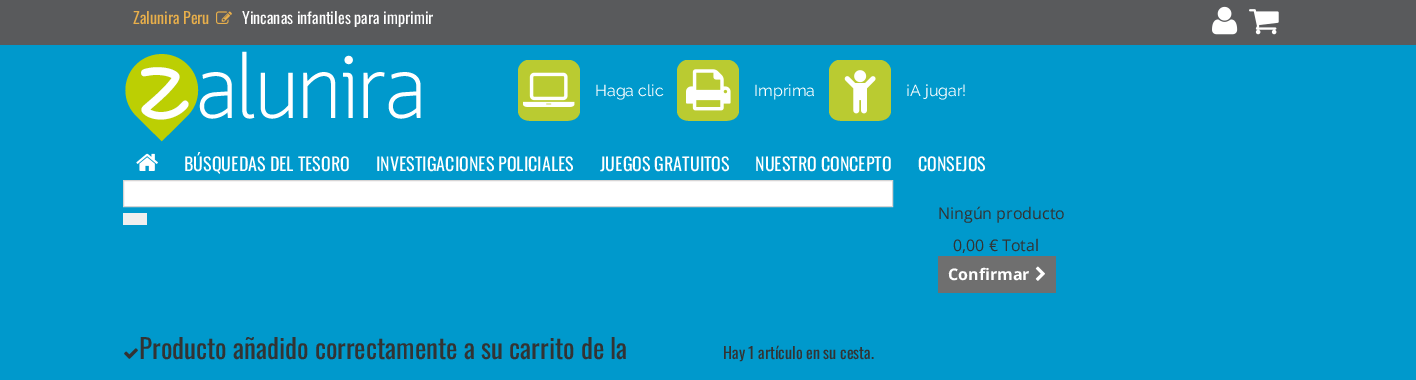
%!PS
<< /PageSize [1416 380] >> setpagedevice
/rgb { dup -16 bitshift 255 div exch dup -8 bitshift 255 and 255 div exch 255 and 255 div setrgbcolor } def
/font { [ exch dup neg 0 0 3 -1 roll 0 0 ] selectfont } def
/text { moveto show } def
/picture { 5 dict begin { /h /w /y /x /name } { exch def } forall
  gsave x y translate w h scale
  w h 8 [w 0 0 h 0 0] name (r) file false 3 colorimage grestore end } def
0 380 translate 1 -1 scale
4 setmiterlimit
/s1 { /Oswald-Regular 16 font 16#E8AF4B rgb } def
/s2 { /Oswald-Regular 16 font 16#FFFFFF rgb } def
/s3 { /Raleway-Regular 16 font 16#FFFFFF rgb } def
/s4 { /Oswald-Regular 18 font 16#FFFFFF rgb } def
/s5 { /OpenSans-Regular 16 font 16#333333 rgb } def
/s6 { /OpenSans-Bold 16 font 16#FFFFFF rgb } def
/s7 { /Oswald-Regular 27 font 16#333333 rgb } def
/s8 { /Oswald-Regular 16 font 16#333333 rgb } def
16#0099CC rgb
0 0 1416 380 rectfill
16#595A5C rgb
0 0 1416 45 rectfill
s1
(Zalunira Peru) 133 24 text
(pic1.raw) 216 11 16 13 picture
s2
(Yincanas infantiles para imprimir) 242 24 text
(pic2.raw) 1212 6 26 29 picture
(pic3.raw) 1249 9 30 26 picture
(pic4.raw) 125 51 296 91 picture
16#BACB31 rgb
580 71 moveto 580 112 lineto 578 121 569 121 562 121 curveto 536 121 lineto 528 121 520 121 518 112 curveto 518 71 lineto 518 66 522 61 527 60 curveto 570 60 lineto 576 61 580 66 580 71 curveto closepath fill
(pic5.raw) 523 72 52 35 picture
s3
(Haga clic) 595 96 text
16#BACB31 rgb
739 71 moveto 739 112 lineto 737 121 728 121 721 121 curveto 695 121 lineto 687 121 679 121 677 112 curveto 677 71 lineto 677 66 681 61 686 60 curveto 729 60 lineto 735 61 739 66 739 71 curveto closepath fill
(pic6.raw) 686 69 45 42 picture
s3
(Imprima) 754 96 text
16#BACB31 rgb
891 71 moveto 891 112 lineto 889 121 880 121 873 121 curveto 847 121 lineto 839 121 831 121 829 112 curveto 829 71 lineto 829 66 833 61 838 60 curveto 881 60 lineto 887 61 891 66 891 71 curveto closepath fill
(pic7.raw) 844 70 32 44 picture
s3
(¡A jugar!) 906 96 text
(pic8.raw) 136 153 22 18 picture
s4
(BÚSQUEDAS DEL TESORO) 184 171 text
(INVESTIGACIONES POLICIALES) 376 171 text
(JUEGOS GRATUITOS) 600 171 text
(NUESTRO CONCEPTO) 755 171 text
(CONSEJOS) 918 171 text
123.5 180.5 moveto 892.5 180.5 lineto 892.5 206.5 lineto 123.5 206.5 lineto closepath gsave fill grestore
16#D6D4D4 rgb
stroke
16#EFEFEF rgb
123 213 24 12 rectfill
s5
(Ningún producto) 938 219 text
(0,00 € Total) 953 251 text
16#6F6F6F rgb
938 256 118 37 rectfill
s6
(Confirmar) 948 280 text
(pic9.raw) 1035 266 10 15 picture
(pic10.raw) 124 348 14 11 picture
s7
(Producto añadido correctamente a su carrito de la) 139 359 text
s8
(Hay 1 artículo en su cesta.) 723 359 text
showpage
